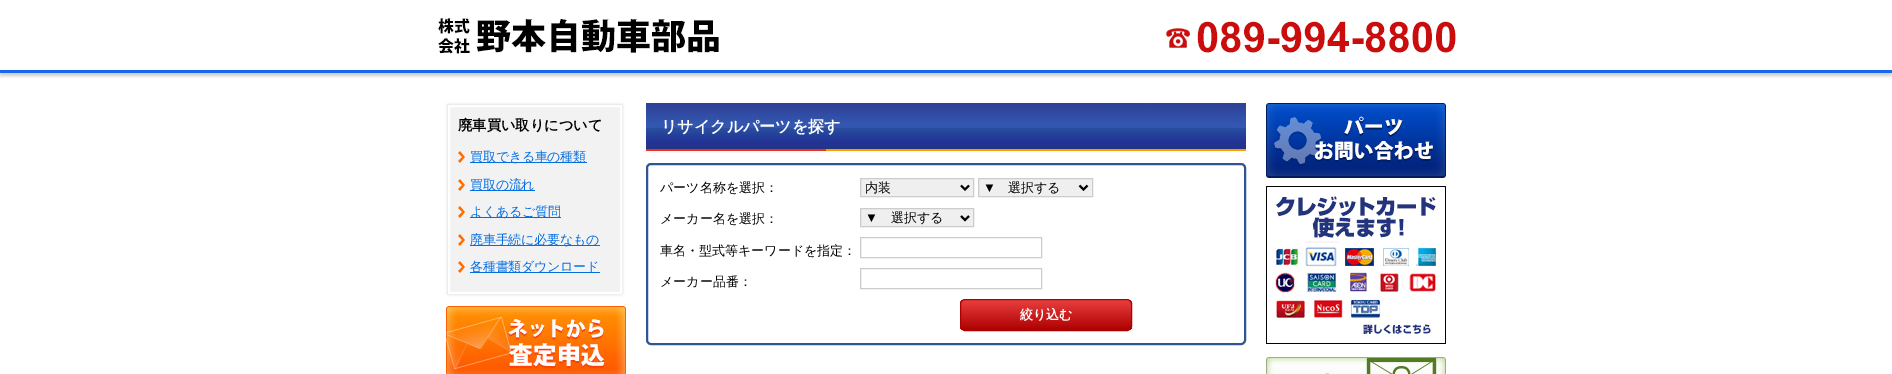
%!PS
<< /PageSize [1892 374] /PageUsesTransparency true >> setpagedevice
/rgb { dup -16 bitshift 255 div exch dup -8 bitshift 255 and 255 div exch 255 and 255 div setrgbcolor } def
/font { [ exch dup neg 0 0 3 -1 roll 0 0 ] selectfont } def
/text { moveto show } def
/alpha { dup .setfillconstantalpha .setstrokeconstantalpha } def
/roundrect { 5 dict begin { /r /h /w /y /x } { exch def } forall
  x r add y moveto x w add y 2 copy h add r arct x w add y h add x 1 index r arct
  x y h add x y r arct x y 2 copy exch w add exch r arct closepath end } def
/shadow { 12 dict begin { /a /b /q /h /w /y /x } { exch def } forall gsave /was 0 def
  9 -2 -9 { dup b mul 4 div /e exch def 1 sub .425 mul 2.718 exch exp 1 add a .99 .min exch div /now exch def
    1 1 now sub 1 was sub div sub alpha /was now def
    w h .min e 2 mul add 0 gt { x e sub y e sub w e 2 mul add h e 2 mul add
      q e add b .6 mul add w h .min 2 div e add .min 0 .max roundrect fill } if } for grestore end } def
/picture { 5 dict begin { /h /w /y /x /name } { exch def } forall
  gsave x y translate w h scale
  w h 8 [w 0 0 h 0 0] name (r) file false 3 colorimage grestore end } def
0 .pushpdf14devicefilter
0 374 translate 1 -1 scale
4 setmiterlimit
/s1 { /WenQuanYiZenHei-Bold 14.25 font 16#000000 rgb } def
/s2 { /WenQuanYiZenHei-Bold 16 font 16#FFFFFF rgb } def
/s3 { /WenQuanYiZenHei-Medium 13 font 16#000000 rgb } def
/s4 { /LiberationSans-Regular 13 font 16#000000 rgb } def
/s5 { /WenQuanYiZenHei-Bold 13 font 16#FFFFFF rgb } def
16#FFFFFF rgb
0 0 1892 374 rectfill
gsave
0 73 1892 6 rectclip
16#CCCCCC rgb
0 3 1892 73 0 1.5 1 shadow
grestore
16#1A66ED rgb
0 70 1892 3 rectfill
(pic1.raw) 438 18 281 36 picture
(pic2.raw) 1166 19 290 39 picture
16#CCCCCC rgb
448 105 174 189 0 1.5 1 shadow
16#F2F2F2 rgb
449 106 moveto 621 106 lineto 621 293 lineto 449 293 lineto closepath gsave fill grestore
16#FFFFFF rgb
2 setlinewidth
stroke
s1
(廃車買い取りについて) 458 130 text
(pic3.raw) 458 151 7 12 picture
16#036EE2 rgb
470 162 117 1 rectfill
/WenQuanYiZenHei-Medium 13 font
470 161 moveto -0.25 0 (買取できる車の種類) ashow
(pic3.raw) 458 179 7 12 picture
470 190 65 1 rectfill
470 189 moveto -0.25 0 (買取の流れ) ashow
(pic3.raw) 458 206 7 12 picture
470 217 91 1 rectfill
470 216 moveto -0.25 0 (よくあるご質問) ashow
(pic3.raw) 458 234 7 12 picture
470 245 130 1 rectfill
470 244 moveto -0.25 0 (廃車手続に必要なもの) ashow
(pic3.raw) 458 261 7 12 picture
470 272 130 1 rectfill
470 271 moveto -0.25 0 (各種書類ダウンロード) ashow
(pic4.raw) 446 306 180 68 picture
(pic5.raw) 646 103 600 48 picture
s2
(リサイクルパーツを探す) 661 132 text
16#305593 rgb
647 164 598 180 4 roundrect stroke
s3
(パーツ名称を選択：) 660 192 text
16#EFEFEF rgb
860.5 178.5 moveto 973.5 178.5 lineto 973.5 196.5 lineto 860.5 196.5 lineto closepath gsave fill grestore
16#CCCCCC rgb
1 setlinewidth
stroke
16#000000 rgb
2 setlinewidth
961 185.5 moveto 965 189.5 lineto 969 185.5 lineto stroke
(内装) 865 192 text
16#EFEFEF rgb
978.5 178.5 moveto 1092.5 178.5 lineto 1092.5 196.5 lineto 978.5 196.5 lineto closepath gsave fill grestore
16#CCCCCC rgb
1 setlinewidth
stroke
16#000000 rgb
2 setlinewidth
1079.5 185.5 moveto 1083.5 189.5 lineto 1087.5 185.5 lineto stroke
s4
(▼) 983 192 text
s3
(選択する) 1008 192 text
(メーカー名を選択：) 660 223 text
16#EFEFEF rgb
860.5 208.5 moveto 973.5 208.5 lineto 973.5 226.5 lineto 860.5 226.5 lineto closepath gsave fill grestore
16#CCCCCC rgb
1 setlinewidth
stroke
16#000000 rgb
2 setlinewidth
961 216 moveto 965 220 lineto 969 216 lineto stroke
s4
(▼) 865 222 text
s3
(選択する) 891 222 text
(車名・型式等キーワードを指定：) 660 255 text
16#CCCCCC rgb
1 setlinewidth
860.5 237.5 181 20 rectstroke
s3
(メーカー品番：) 660 286 text
16#CCCCCC rgb
860.5 268.5 181 20 rectstroke
gsave
960 299 172 32 5 roundrect clip newpath
gsave 960 300 moveto 1132 300 lineto 1132 330 lineto 960 330 lineto closepath clip newpath
<< /ShadingType 2 /ColorSpace /DeviceRGB /Coords [1046 300 1046 330] /Extend [true true] /Function << /FunctionType 2 /Domain [0 1] /C0 [0.918 0.247 0.247] /C1 [0.678 0 0] /N 1 >> >> shfill grestore
grestore
16#AD0000 rgb
960.5 299.5 171 31 4.5 roundrect stroke
s5
(絞り込む) 1020 319 text
(pic6.raw) 1266 103 180 75 picture
(pic7.raw) 1266 186 180 158 picture
(pic8.raw) 1266 357 180 17 picture
.poppdf14devicefilter showpage
